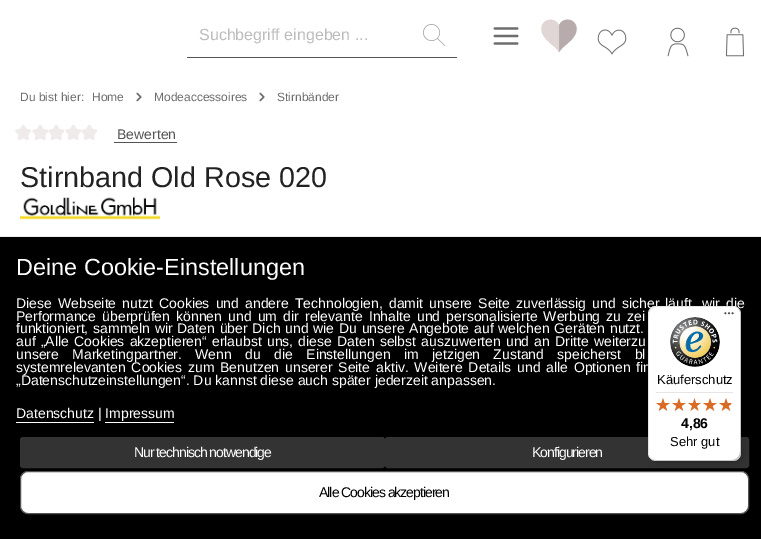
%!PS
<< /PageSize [761 539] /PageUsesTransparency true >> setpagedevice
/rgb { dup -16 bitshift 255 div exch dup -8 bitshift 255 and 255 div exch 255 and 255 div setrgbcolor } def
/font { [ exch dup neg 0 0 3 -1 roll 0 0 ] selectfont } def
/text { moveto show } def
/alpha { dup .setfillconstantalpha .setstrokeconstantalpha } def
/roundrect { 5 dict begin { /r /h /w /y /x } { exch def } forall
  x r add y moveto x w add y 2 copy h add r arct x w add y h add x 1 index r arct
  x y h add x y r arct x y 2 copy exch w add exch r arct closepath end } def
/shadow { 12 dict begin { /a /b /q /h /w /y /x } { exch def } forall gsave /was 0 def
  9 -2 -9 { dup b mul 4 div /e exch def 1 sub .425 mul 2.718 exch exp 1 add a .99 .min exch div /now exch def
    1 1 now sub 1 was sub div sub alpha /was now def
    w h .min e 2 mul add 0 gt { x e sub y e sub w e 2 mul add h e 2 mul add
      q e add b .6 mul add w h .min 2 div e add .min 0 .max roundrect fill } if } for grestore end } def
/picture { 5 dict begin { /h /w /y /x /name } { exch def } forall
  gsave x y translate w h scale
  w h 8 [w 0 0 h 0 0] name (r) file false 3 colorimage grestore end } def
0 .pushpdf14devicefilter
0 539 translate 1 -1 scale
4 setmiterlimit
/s1 { /LiberationSans-Regular 16 font 16#BCBCBC rgb } def
/s2 { /LiberationSans-Regular 12 font 16#6D6D6D rgb } def
/s3 { /LiberationSans-Regular 14 font 16#545454 rgb } def
/s4 { /LiberationSans-Regular 28.75 font 16#222222 rgb } def
/s5 { /LiberationSans-Regular 23.4 font 16#FFFFFF rgb } def
/s6 { /LiberationSans-Regular 14 font 16#FFFFFF rgb } def
/s7 { /LiberationSans-Regular 13 font 16#000000 rgb } def
/s8 { /LiberationSans-Bold 14 font 16#000000 rgb } def
16#FFFFFF rgb
0 0 761 539 rectfill
16#545454 rgb
187 57 270 1 rectfill
s1
(Suchbegriff eingeben ...) 199 40 text
(pic1.raw) 423 24 22 22 picture
(pic2.raw) 493 27 26 18 picture
(pic3.raw) 541 19 36 34 picture
(pic4.raw) 597 29 30 26 picture
(pic5.raw) 667 27 22 30 picture
(pic6.raw) 725 27 20 30 picture
s2
(Du bist hier:) 20 101 text
(Home) 92 101 text
(pic7.raw) 136 92 6 10 picture
(Modeaccessoires) 154 101 text
(pic7.raw) 259 92 6 10 picture
(Stirnbänder) 277 101 text
(pic8.raw) 15 124 16 16 picture
(pic8.raw) 32 124 16 16 picture
(pic8.raw) 48 124 16 16 picture
(pic8.raw) 65 124 16 16 picture
(pic8.raw) 81 124 16 16 picture
s3
(Bewerten) 117 139 text
114 142 63 1 rectfill
s4
(Stirnband Old Rose 020) 20 187 text
(pic9.raw) 20 196 140 24 picture
16#000000 rgb
0 237 761 302 rectfill
16#EFEBEB rgb
0 236 761 1 rectfill
s5
(Deine Cookie-Einstellungen) 16 275 text
/LiberationSans-Regular 14 font
16 308 moveto 2.25 0 32 (Diese Webseite nutzt Cookies und andere Technologien, damit unsere Seite zuverlässig und sicher läuft, wir die) widthshow
16 321 moveto 2.25 0 32 (Performance überprüfen können und um dir relevante Inhalte und personalisierte Werbung zu zei) widthshow
16 333 moveto 0.9 0 32 (funktioniert, sammeln wir Daten über Dich und wie Du unsere Angebote auf welchen Geräten nutzt.) widthshow
16 346 moveto 1.3 0 32 (auf „Alle Cookies akzeptieren“ erlaubst uns, diese Daten selbst auszuwerten und an Dritte weiterzu) widthshow
16 359 moveto 9.5 0 32 (unsere Marketingpartner. Wenn du die Einstellungen im jetzigen Zustand speicherst bl) widthshow
16 372 moveto 1.9 0 32 (systemrelevanten Cookies zum Benutzen unserer Seite aktiv. Weitere Details und alle Optionen fin) widthshow
(„Datenschutzeinstellungen“. Du kannst diese auch später jederzeit anpassen.) 16 385 text
(Datenschutz | Impressum) 16 418 text
16 422 78 1 rectfill
105 422 69 1 rectfill
16#333333 rgb
20.5 437.5 364 30 2.5 roundrect gsave fill grestore
stroke
16#FFFFFF rgb
134 457 moveto -1 0 (Nur technisch notwendige) ashow
16#333333 rgb
385.5 437.5 363 30 2.5 roundrect gsave fill grestore
stroke
16#FFFFFF rgb
532 457 moveto -1 0 (Konfigurieren) ashow
20.5 471.5 728 42 7.5 roundrect gsave fill grestore
16#545454 rgb
stroke
16#000000 rgb
319 497 moveto -1 0 (Alle Cookies akzeptieren) ashow
651 309 93 155 8 4 0.15 shadow
649 307 93 155 8 1 0.15 shadow
16#FFFFFF rgb
648 306 93 155 8 roundrect fill
0.1 alpha
16#000000 rgb
657 307 moveto 734 307 lineto 736 307 738 308 740 310 curveto 738 308 736 306 733 306 curveto 656 306 lineto 652 306 648 310 648 314 curveto 648 453 lineto 648 456 650 458 652 460 curveto 650 458 649 456 649 454 curveto 649 315 lineto 649 311 653 307 657 307 curveto closepath fill
0.2 alpha
649 457 moveto 651 459 653 461 656 461 curveto 733 461 lineto 737 461 741 457 741 453 curveto 741 314 lineto 741 311 739 309 737 307 curveto 739 309 740 311 740 313 curveto 740 452 lineto 740 456 736 460 732 460 curveto 655 460 lineto 653 460 651 459 649 457 curveto closepath fill
16#323232 rgb
650 458 moveto 651 460 654 461 656 461 curveto 733 461 lineto 737 461 741 457 741 453 curveto 741 314 lineto 741 312 740 309 738 308 curveto 739 309 740 311 740 313 curveto 740 452 lineto 740 457 737 460 732 460 curveto 655 460 lineto 653 460 651 459 650 458 curveto closepath fill
0.3 alpha
16#FFFFFF rgb
740 314 moveto 740 309 737 306 732 306 curveto 733 306 lineto 737 306 741 310 741 314 curveto 741 453 lineto 741 457 737 461 733 461 curveto 656 461 lineto 652 461 648 457 648 453 curveto 648 452 lineto 648 457 651 460 656 460 curveto 732 460 lineto 737 460 740 457 740 452 curveto closepath fill
1 alpha
(pic10.raw) 724 312 10 3 picture
(pic11.raw) 670 317 50 50 picture
s7
(Käuferschutz) 657 384 text
16#E5E5E5 rgb
656 392 77 1 rectfill
(pic12.raw) 656 398 14 13 picture
(pic12.raw) 672 398 14 13 picture
(pic13.raw) 688 398 13 13 picture
(pic12.raw) 703 398 14 13 picture
(pic12.raw) 719 398 14 13 picture
(pic14.raw) 656 398 14 13 picture
(pic14.raw) 672 398 14 13 picture
(pic15.raw) 688 398 13 13 picture
(pic14.raw) 703 398 14 13 picture
(pic16.raw) 719 398 12 13 picture
s8
(4,86) 681 428 text
s7
(Sehr gut) 670 446 text
.poppdf14devicefilter showpage
